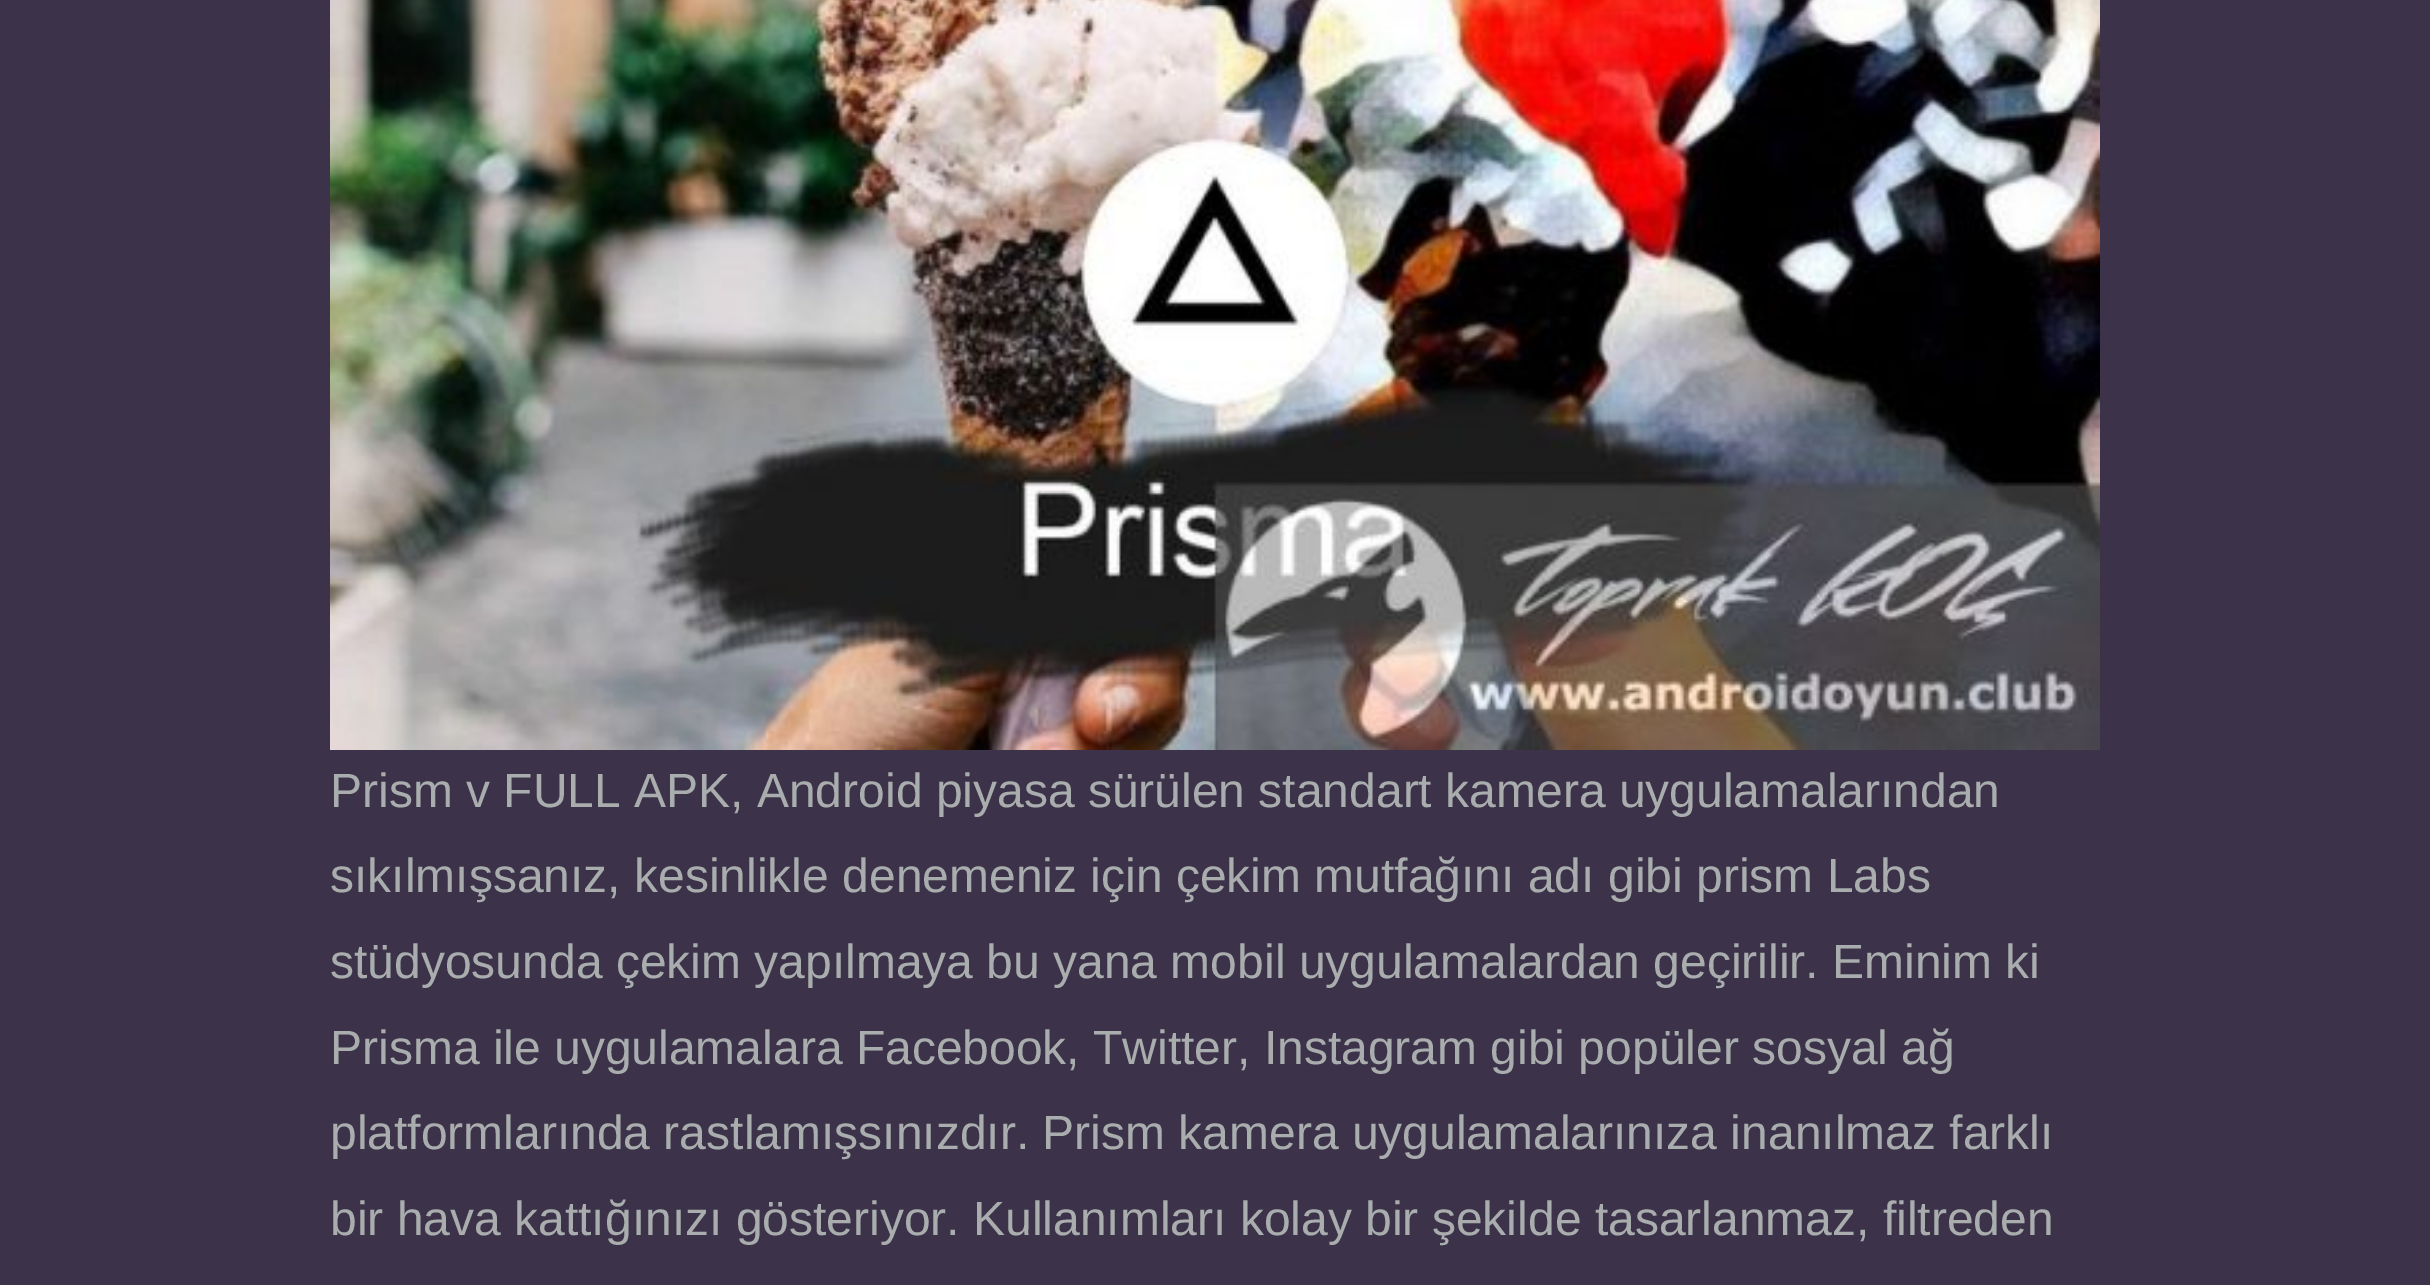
%!PS
<< /PageSize [2430 1285] >> setpagedevice
/rgb { dup -16 bitshift 255 div exch dup -8 bitshift 255 and 255 div exch 255 and 255 div setrgbcolor } def
/font { [ exch dup neg 0 0 3 -1 roll 0 0 ] selectfont } def
/text { moveto show } def
/picture { 5 dict begin { /h /w /y /x /name } { exch def } forall
  gsave x y translate w h scale
  w h 8 [w 0 0 h 0 0] name (r) file false 3 colorimage grestore end } def
0 1285 translate 1 -1 scale
4 setmiterlimit
/s1 { /LiberationSans-Regular 48 font 16#AAADAE rgb } def
16#3C334A rgb
0 0 2430 1285 rectfill
(pic1.raw) 330 0 1770 750 picture
s1
(Prism v FULL APK, Android piyasa sürülen standart kamera uygulamalarından) 330 807 text
(sıkılmışsanız, kesinlikle denemeniz için çekim mutfağını adı gibi prism Labs) 330 892 text
(stüdyosunda çekim yapılmaya bu yana mobil uygulamalardan geçirilir. Eminim ki) 330 978 text
(Prisma ile uygulamalara Facebook, Twitter, Instagram gibi popüler sosyal ağ) 330 1064 text
(platformlarında rastlamışsınızdır. Prism kamera uygulamalarınıza inanılmaz farklı) 330 1149 text
(bir hava kattığınızı gösteriyor. Kullanımları kolay bir şekilde tasarlanmaz, filtreden) 330 1235 text
showpage
